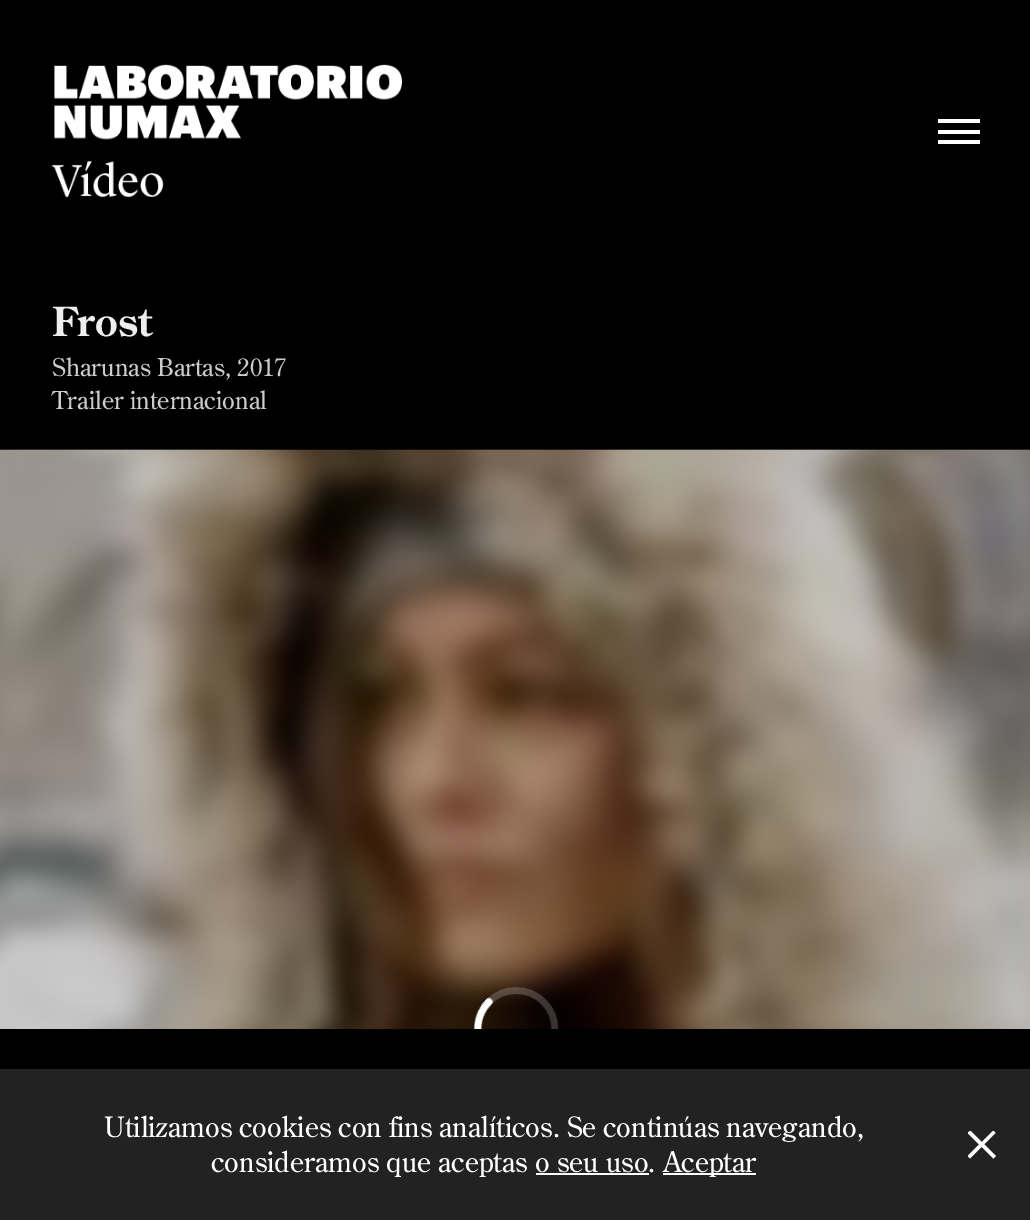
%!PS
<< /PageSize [1030 1220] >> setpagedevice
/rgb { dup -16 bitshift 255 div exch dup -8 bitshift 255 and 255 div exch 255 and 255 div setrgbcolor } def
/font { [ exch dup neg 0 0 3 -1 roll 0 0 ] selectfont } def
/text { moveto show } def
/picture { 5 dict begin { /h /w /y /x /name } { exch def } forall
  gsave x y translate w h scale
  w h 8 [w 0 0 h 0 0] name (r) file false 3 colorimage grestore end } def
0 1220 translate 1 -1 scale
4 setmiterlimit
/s1 { /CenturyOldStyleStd-Bold 40 font 16#EEEEEE rgb } def
/s2 { /CenturyOldStyleStd-Regular 24.5 font 16#CCCCCC rgb } def
/s3 { /CenturyOldStyleStd-Regular 28 font 16#FFFFFF rgb } def
16#000000 rgb
0 0 1030 1220 rectfill
(pic1.raw) 51 64 351 134 picture
16#FFFFFF rgb
938 119 42 4 rectfill
938 130 42 4 rectfill
938 140 42 4 rectfill
s1
(Frost) 52 336 text
s2
(Sharunas Bartas, 2017) 52 376 text
(Trailer internacional) 52 409 text
(pic2.raw) 0 449 1030 580 picture
16#222222 rgb
0 1069 1030 151 rectfill
s3
(Utilizamos cookies con fins analíticos. Se continúas navegando,) 104 1137 text
(consideramos que aceptas o seu uso.) 211 1172 text
663 1173 93 2 rectfill
(Aceptar) 663 1172 text
536 1173 113 2 rectfill
gsave
968 1131 28 28 rectclip
967.5 1133 moveto 970 1130.5 lineto 996 1156 lineto 993.5 1158.5 lineto closepath fill
970 1158.5 moveto 967.5 1156 lineto 993.5 1130.5 lineto 995.5 1133 lineto closepath fill
grestore
showpage
